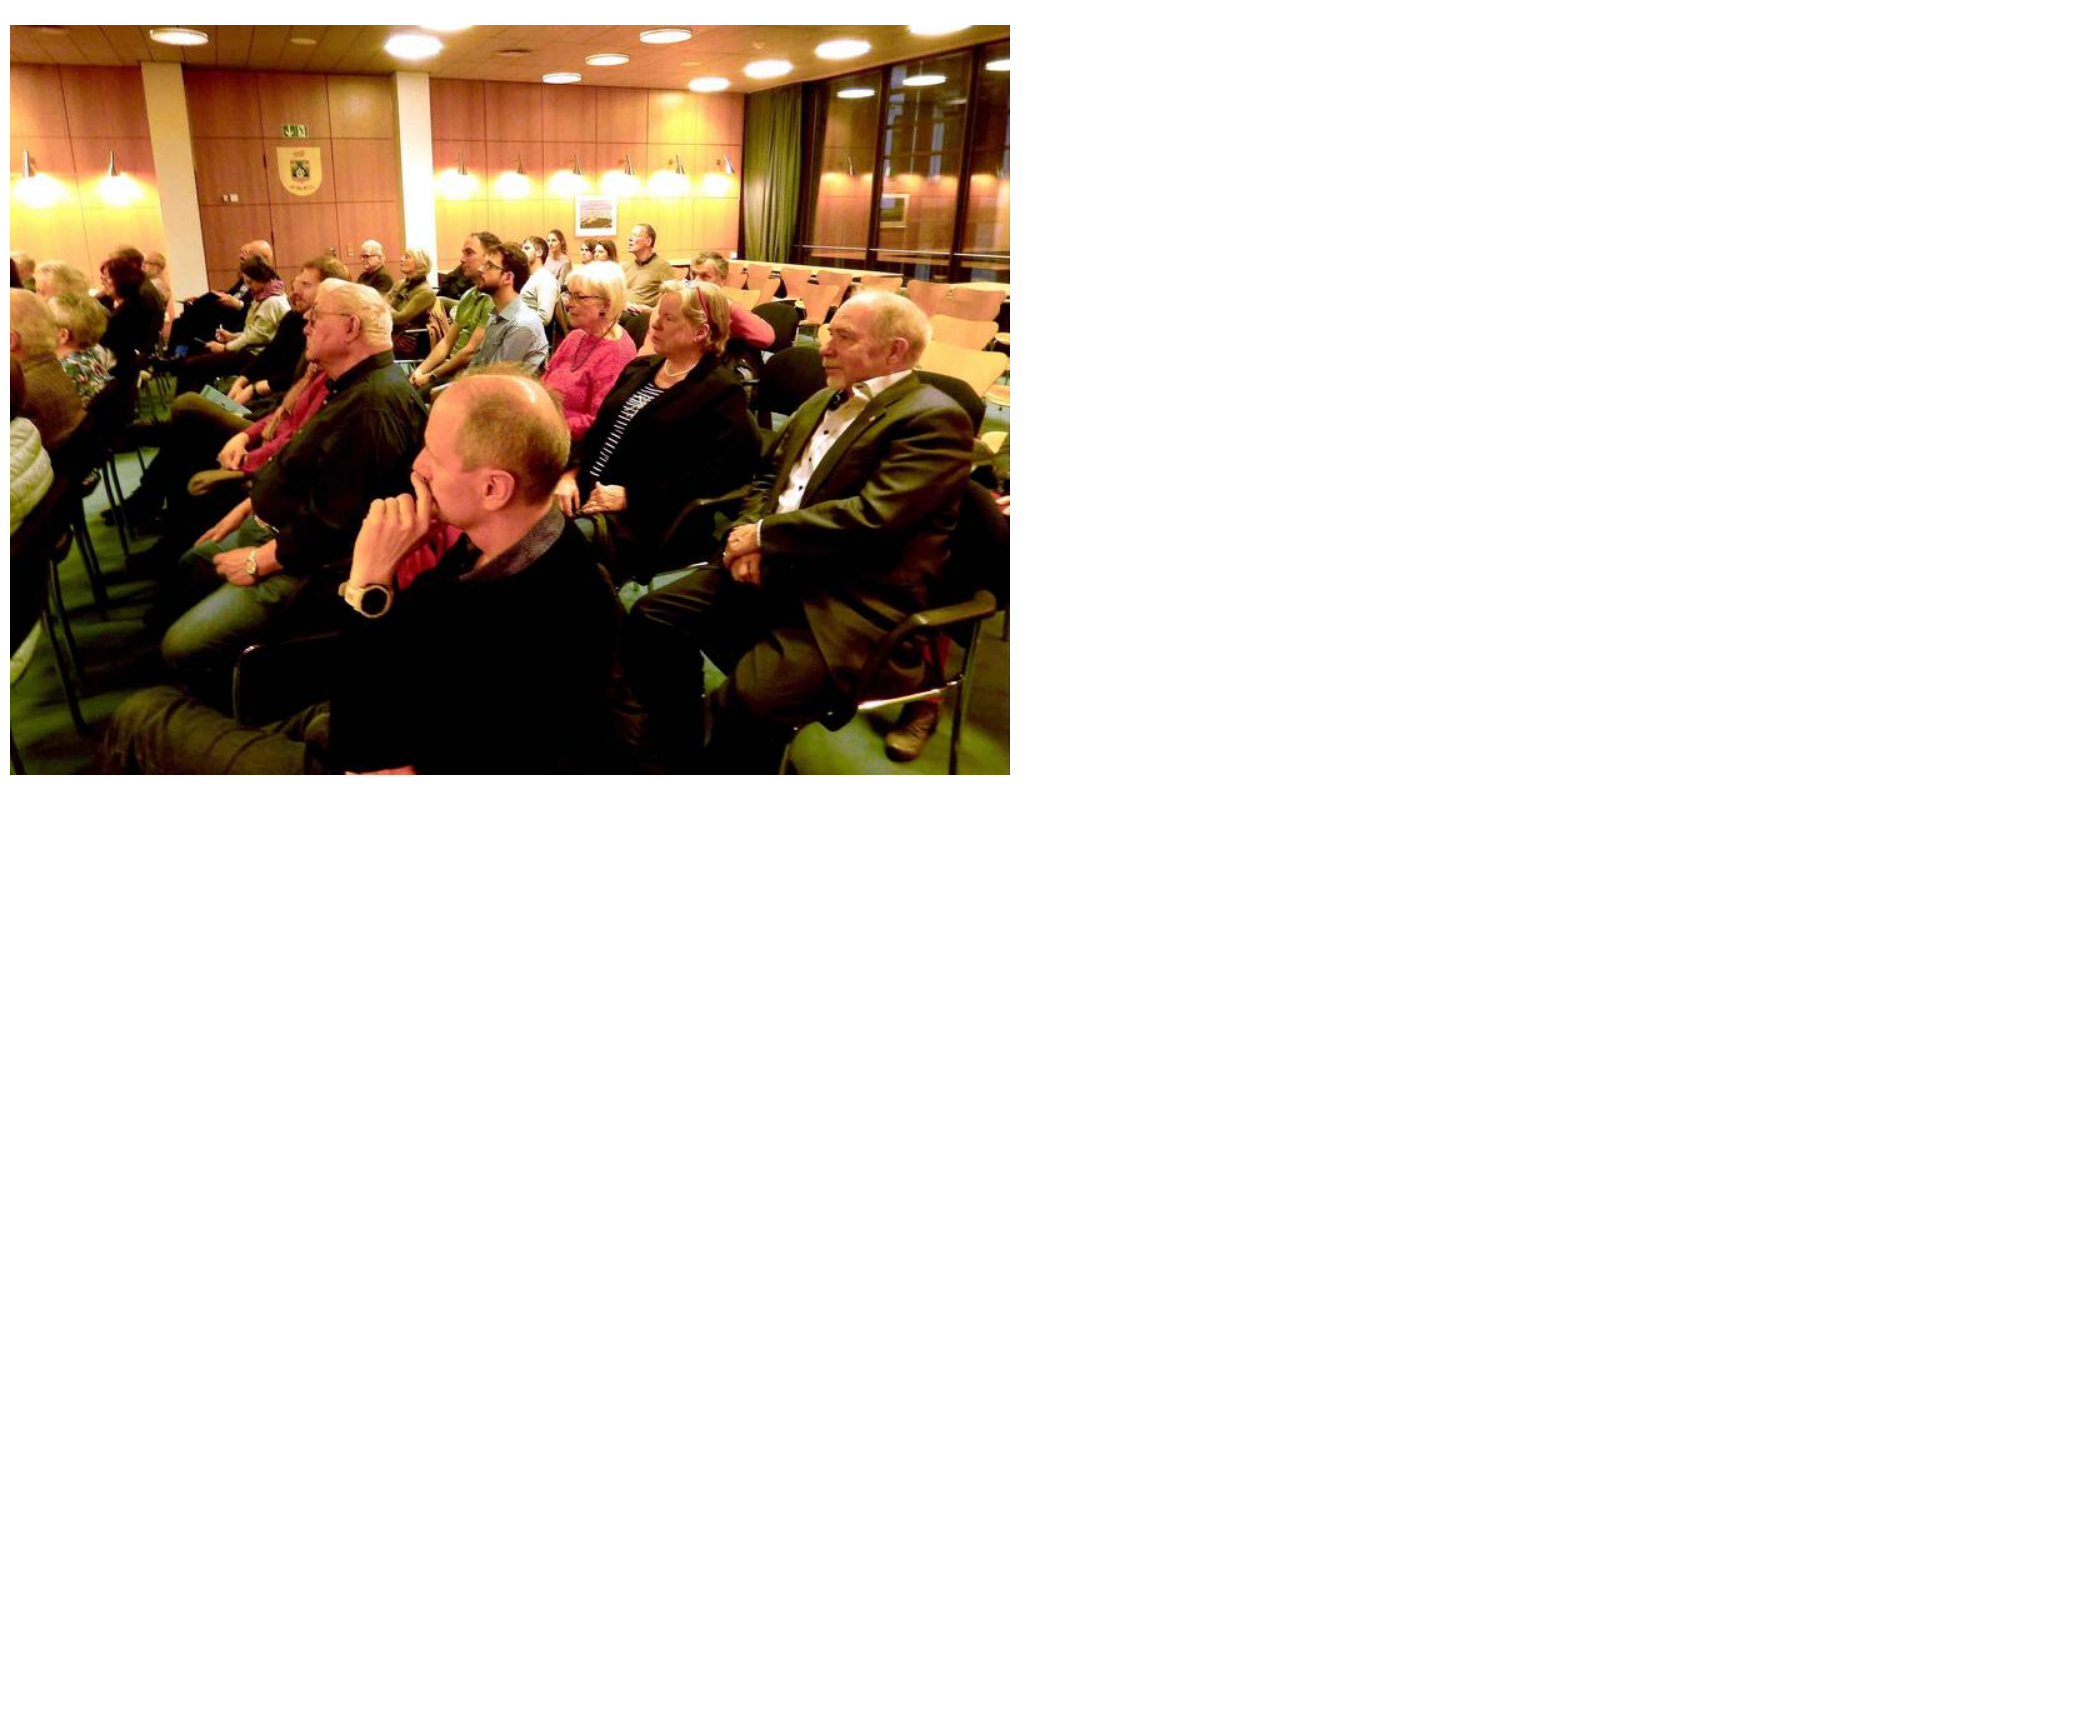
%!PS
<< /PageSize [2083 1726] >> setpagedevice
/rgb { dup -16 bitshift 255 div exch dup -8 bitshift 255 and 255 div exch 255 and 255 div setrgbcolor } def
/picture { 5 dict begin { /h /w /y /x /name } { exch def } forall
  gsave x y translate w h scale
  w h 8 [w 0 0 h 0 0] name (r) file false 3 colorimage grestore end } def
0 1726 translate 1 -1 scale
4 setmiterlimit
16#FFFFFF rgb
0 0 2083 1726 rectfill
(pic1.raw) 10 25 1000 750 picture
showpage
